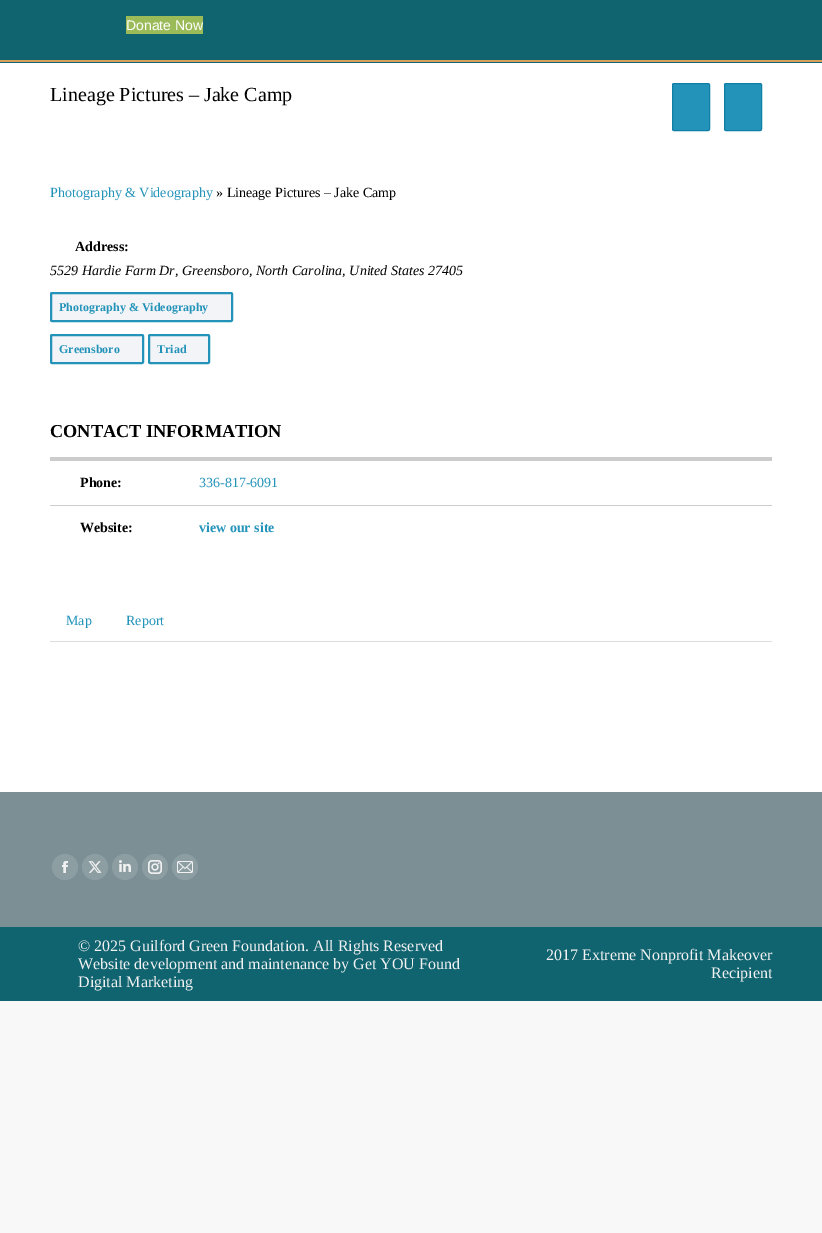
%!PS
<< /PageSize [822 1233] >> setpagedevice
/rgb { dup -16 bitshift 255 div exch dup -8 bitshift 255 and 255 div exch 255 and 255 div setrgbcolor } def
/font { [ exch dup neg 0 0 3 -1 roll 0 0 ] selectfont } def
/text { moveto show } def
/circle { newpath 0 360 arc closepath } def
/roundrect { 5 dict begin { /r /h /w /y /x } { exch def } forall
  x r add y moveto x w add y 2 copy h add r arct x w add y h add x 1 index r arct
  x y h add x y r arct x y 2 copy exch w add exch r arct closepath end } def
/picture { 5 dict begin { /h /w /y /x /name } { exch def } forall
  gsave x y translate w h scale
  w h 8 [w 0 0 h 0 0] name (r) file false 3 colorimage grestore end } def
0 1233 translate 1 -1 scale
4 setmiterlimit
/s1 { /LiberationSans-Regular 14 font 16#FFFFFF rgb } def
/s2 { /LiberationSerif-Regular 20 font 16#000000 rgb } def
/s3 { /LiberationSerif-Regular 14 font 16#2393BA rgb } def
/s4 { /LiberationSerif-Regular 14 font 16#000000 rgb } def
/s5 { /LiberationSerif-Bold 14 font 16#000000 rgb } def
/s6 { /LiberationSerif-Italic 14 font 16#000000 rgb } def
/s7 { /LiberationSerif-Bold 12 font 16#2393BA rgb } def
/s8 { /LiberationSerif-Bold 18.25 font 16#000000 rgb } def
/s9 { /LiberationSerif-Bold 14 font 16#2393BA rgb } def
/s10 { /LiberationSerif-Regular 16 font 16#F1F1F1 rgb } def
16#F8F8F9 rgb
0 0 822 1233 rectfill
16#FFFFFF rgb
0 63 822 729 rectfill
16#106470 rgb
0 0 822 63 rectfill
16#D9A05B rgb
0 60 822 2 rectfill
16#9BBB59 rgb
126 16 77 18 rectfill
s1
(Donate Now) 126 30 text
s2
(Lineage Pictures – Jake Camp) 50 101 text
16#2393BA rgb
672.5 83.5 37 47 1.5 roundrect gsave fill grestore
16#0F7FA6 rgb
stroke
16#2393BA rgb
724.5 83.5 37 47 1.5 roundrect gsave fill grestore
16#0F7FA6 rgb
stroke
s3
(Photography & Videography) 50 197 text
s4
(» Lineage Pictures – Jake Camp) 216 197 text
s5
(Address:) 75 251 text
s6
(5529 Hardie Farm Dr, Greensboro, North Carolina, United States 27405) 50 275 text
16#F3F4F7 rgb
51 293 181 28 1 roundrect gsave fill grestore
16#2393BA rgb
2 setlinewidth
stroke
s7
(Photography & Videography) 59 311 text
16#F3F4F7 rgb
51 335 92 28 1 roundrect gsave fill grestore
16#2393BA rgb
stroke
(Greensboro) 59 353 text
16#F3F4F7 rgb
149 335 60 28 1 roundrect gsave fill grestore
16#2393BA rgb
stroke
(Triad) 157 353 text
16#CCCCCC rgb
50 457 722 4 rectfill
s8
(CONTACT INFORMATION) 50 437 text
16#CCCCCC rgb
50 505 722 1 rectfill
s5
(Phone:) 80 487 text
s3
(336-817-6091) 199 487 text
s5
(Website:) 80 532 text
s9
(view our site) 199 532 text
16#DDDDDD rgb
50 641 722 1 rectfill
s3
(Map) 66 625 text
(Report) 126 625 text
16#7B8F95 rgb
0 792 822 135 rectfill
16#8D9EA3 rgb
65 867 13 circle fill
(pic1.raw) 62 861 6 12 picture
95 867 13 circle fill
(pic2.raw) 88 861 14 12 picture
125 867 13 circle fill
(pic3.raw) 119 860 12 12 picture
155 867 13 circle fill
(pic4.raw) 148 860 14 14 picture
185 867 13 circle fill
(pic5.raw) 177 861 16 12 picture
16#106470 rgb
0 927 822 74 rectfill
s10
(© 2025 Guilford Green Foundation. All Rights Reserved) 78 951 text
(Website development and maintenance by Get YOU Found) 78 969 text
(Digital Marketing) 78 987 text
(2017 Extreme Nonprofit Makeover) 546 960 text
(Recipient) 711 978 text
showpage
